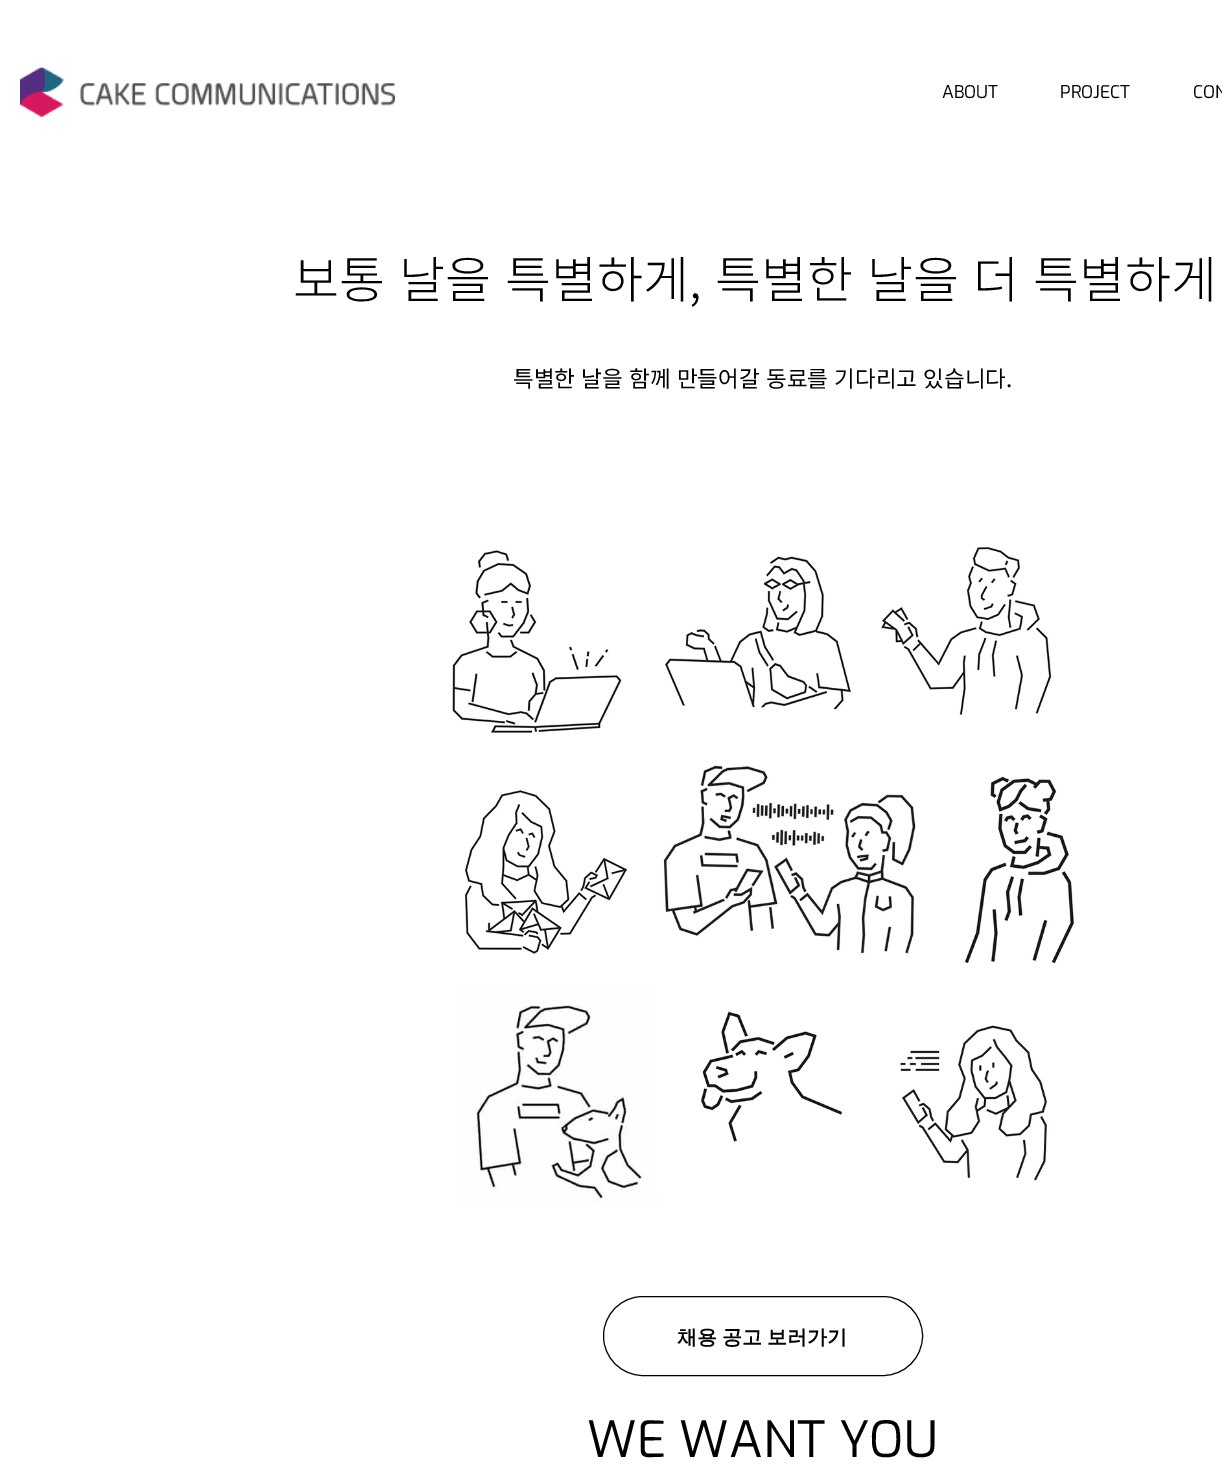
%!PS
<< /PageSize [1222 1464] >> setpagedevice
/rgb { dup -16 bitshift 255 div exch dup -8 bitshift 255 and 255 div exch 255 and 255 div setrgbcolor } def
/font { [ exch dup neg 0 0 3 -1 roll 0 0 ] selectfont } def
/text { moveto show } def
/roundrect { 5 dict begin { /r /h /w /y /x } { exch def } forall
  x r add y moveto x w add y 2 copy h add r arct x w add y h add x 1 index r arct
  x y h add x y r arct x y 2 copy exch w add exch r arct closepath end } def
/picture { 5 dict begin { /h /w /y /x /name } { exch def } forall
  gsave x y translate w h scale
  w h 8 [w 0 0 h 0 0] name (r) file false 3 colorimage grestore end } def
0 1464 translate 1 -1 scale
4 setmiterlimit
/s1 { /Exo-Regular 17.5 font 16#000000 rgb } def
/s2 { /Exo-Regular 50 font 16#000000 rgb } def
16#FFFFFF rgb
0 0 1222 1464 rectfill
(pic1.raw) 20 67 375 50 picture
s1
(ABOUT) 942 98 text
(PROJECT) 1060 98 text
(CON) 1193 98 text
/NotoSansKR-Light 50 font
293 298 moveto 3 0 32 (보통 날을 특별하게,) widthshow
715 298 moveto 3 0 32 (특별한 날을 더 특별하게) widthshow
/NotoSansKR-Regular 22.5 font
513 387 moveto 1.25 0 32 (특별한 날을 함께 만들어갈 동료를 기다리고 있습니다.) widthshow
(pic2.raw) 452 546 623 658 picture
603.5 1296.5 319 79 39.5 roundrect stroke
/WenQuanYiZenHei-Bold 20 font
677 1344 moveto -1 0 32 (채용 공고 보러가기) widthshow
s2
(WE WANT YOU) 587 1457 text
showpage
